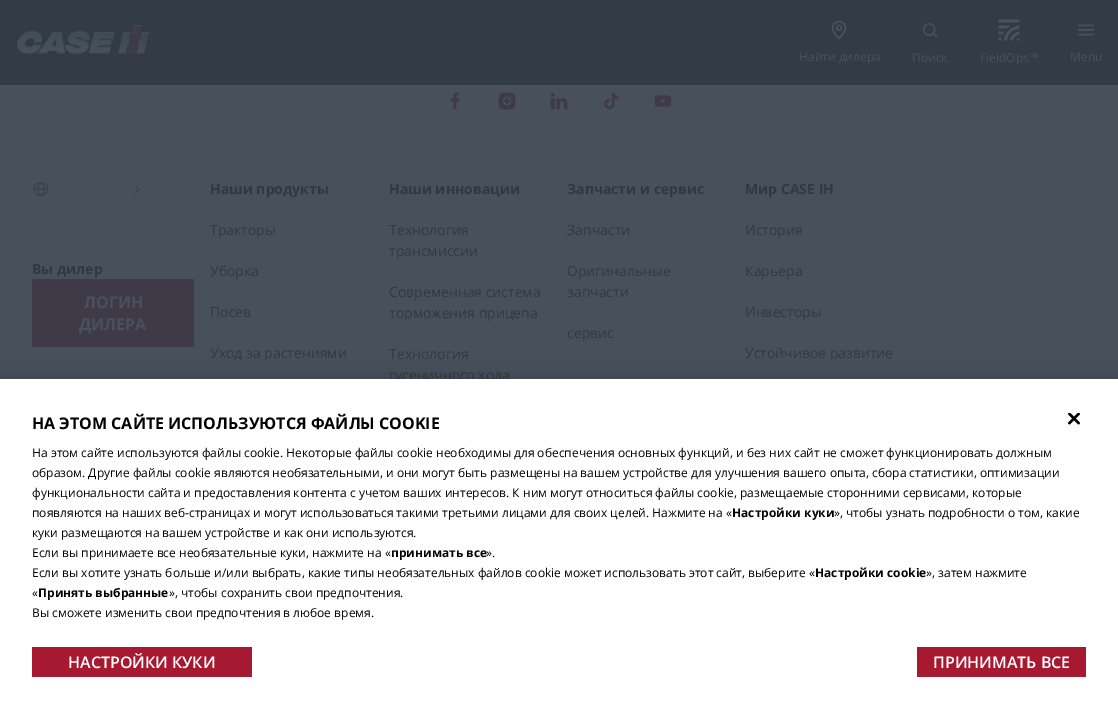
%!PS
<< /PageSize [1118 709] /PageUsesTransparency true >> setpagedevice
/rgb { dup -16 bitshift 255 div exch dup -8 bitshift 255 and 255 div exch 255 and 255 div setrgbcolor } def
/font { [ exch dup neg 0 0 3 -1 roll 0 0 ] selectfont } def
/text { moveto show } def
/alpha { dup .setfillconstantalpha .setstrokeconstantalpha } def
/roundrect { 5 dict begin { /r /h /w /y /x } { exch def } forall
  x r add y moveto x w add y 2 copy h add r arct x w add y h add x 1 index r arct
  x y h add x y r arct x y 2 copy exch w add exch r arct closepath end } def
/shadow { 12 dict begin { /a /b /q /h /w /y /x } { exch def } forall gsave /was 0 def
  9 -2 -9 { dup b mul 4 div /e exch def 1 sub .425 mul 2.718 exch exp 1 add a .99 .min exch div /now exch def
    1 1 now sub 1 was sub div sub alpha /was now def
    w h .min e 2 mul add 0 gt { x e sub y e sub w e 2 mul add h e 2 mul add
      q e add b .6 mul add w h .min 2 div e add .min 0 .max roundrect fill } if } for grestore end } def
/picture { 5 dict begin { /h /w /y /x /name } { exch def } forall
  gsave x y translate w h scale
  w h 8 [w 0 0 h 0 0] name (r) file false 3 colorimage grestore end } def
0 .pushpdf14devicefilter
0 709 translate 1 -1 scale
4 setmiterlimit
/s1 { /OpenSans-Regular 12 font 16#48515C rgb } def
/s2 { /OpenSans-Bold 14 font 16#2F3843 rgb } def
/s3 { /OpenSans-Bold 16 font 16#48515C rgb } def
/s4 { /OpenSans-Regular 14 font 16#2F3843 rgb } def
/s5 { /OpenSans-Bold 16 font 16#000000 rgb } def
/s6 { /OpenSans-Regular 12 font 16#000000 rgb } def
/s7 { /OpenSans-Bold 12 font 16#000000 rgb } def
/s8 { /OpenSans-SemiBold 16 font 16#FFFFFF rgb } def
16#47505B rgb
0 0 1118 709 rectfill
16#323B46 rgb
0 0 1118 85 rectfill
(pic1.raw) 16 24 135 32 picture
(pic2.raw) 831 20 16 20 picture
s1
(Найти дилера) 799 61 text
(pic3.raw) 923 23 15 15 picture
(Поиск) 912 62 text
(pic4.raw) 998 19 22 22 picture
(FieldOps™) 980 62 text
(pic5.raw) 1077 24 18 12 picture
(Menu) 1070 61 text
(pic6.raw) 450 92 10 18 picture
(pic7.raw) 498 92 18 18 picture
(pic8.raw) 550 92 18 18 picture
(pic9.raw) 604 92 15 18 picture
(pic10.raw) 654 95 18 12 picture
(pic11.raw) 33 181 16 16 picture
(pic12.raw) 135 185 5 9 picture
s2
(Вы дилер) 32 274 text
16#403A47 rgb
32 279 162 68 rectfill
s3
(ЛОГИН) 84 308 text
(ДИЛЕРА) 79 330 text
s2
(Наши продукты) 210 194 text
s4
(Тракторы) 210 235 text
(Уборка) 210 276 text
(Посев) 210 317 text
(Уход за растениями) 210 358 text
s2
(Наши инновации) 389 194 text
s4
(Технология) 389 235 text
(трансмиссии) 389 256 text
(Современная система) 389 297 text
(торможения прицепа) 389 318 text
(Технология) 389 359 text
(гусеничного хода) 389 380 text
s2
(Запчасти и сервис) 567 194 text
s4
(Запчасти) 567 235 text
(Оригинальные) 567 276 text
(запчасти) 567 297 text
(сервис) 567 338 text
s2
(Мир CASE IH) 745 194 text
s4
(История) 745 235 text
(Карьера) 745 276 text
(Инвесторы) 745 317 text
(Устойчивое развитие) 745 358 text
16#000000 rgb
0 379 1118 330 0 9 0.2 shadow
16#FFFFFF rgb
0 379 1118 330 rectfill
s5
(НА ЭТОМ САЙТЕ ИСПОЛЬЗУЮТСЯ ФАЙЛЫ COOKIE) 32 429 text
s6
(На этом сайте используются файлы cookie. Некоторые файлы cookie необходимы для обеспечения основных функций, и без них сайт не сможет функционировать должным) 32 457 text
(образом. Другие файлы cookie являются необязательными, и они могут быть размещены на вашем устройстве для улучшения вашего опыта, сбора статистики, оптимизации) 32 477 text
(функциональности сайта и предоставления контента с учетом ваших интересов. К ним могут относиться файлы cookie, размещаемые сторонними сервисами, которые) 32 497 text
(появляются на наших веб-страницах и могут использоваться такими третьими лицами для своих целей. Нажмите на «) 32 517 text
s7
(Настройки куки) 732 517 text
s6
(», чтобы узнать подробности о том, какие) 834 517 text
(куки размещаются на вашем устройстве и как они используются.) 32 537 text
(Если вы принимаете все необязательные куки, нажмите на «) 32 557 text
s7
(принимать все) 391 557 text
s6
(».) 486 557 text
(Если вы хотите узнать больше и/или выбрать, какие типы необязательных файлов cookie может использовать этот сайт, выберите «) 32 577 text
s7
(Настройки cookie) 815 577 text
s6
(», затем нажмите) 926 577 text
(«) 32 597 text
s7
(Принять выбранные) 38 597 text
s6
(», чтобы сохранить свои предпочтения.) 169 597 text
(Вы сможете изменить свои предпочтения в любое время.) 32 617 text
16#A71930 rgb
32 647 220 30 rectfill
s8
(НАСТРОЙКИ КУКИ) 68 668 text
16#A71930 rgb
917 647 169 30 rectfill
s8
(ПРИНИМАТЬ ВСЕ) 933 668 text
(pic13.raw) 1068 413 12 12 picture
.poppdf14devicefilter showpage
